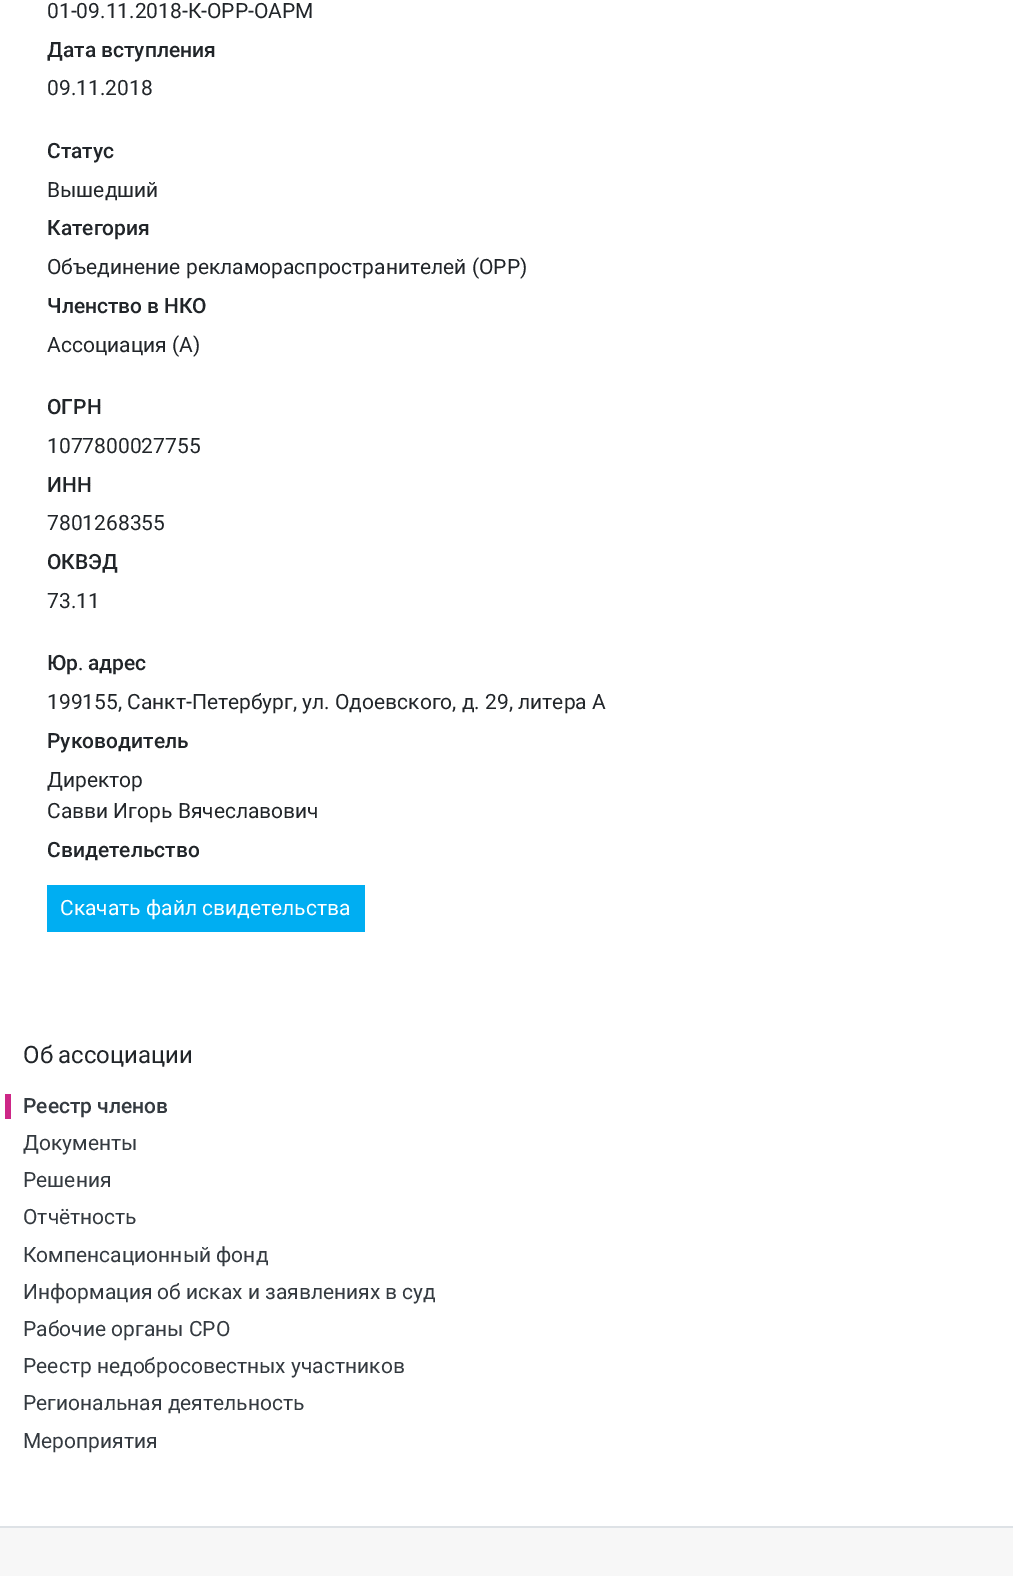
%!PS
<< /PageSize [1013 1576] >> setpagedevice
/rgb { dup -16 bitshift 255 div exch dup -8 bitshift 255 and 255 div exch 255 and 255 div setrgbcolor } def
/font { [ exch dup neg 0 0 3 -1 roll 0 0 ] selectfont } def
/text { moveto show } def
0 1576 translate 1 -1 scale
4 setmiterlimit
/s1 { /Roboto-Regular 21 font 16#212529 rgb } def
/s2 { /Roboto-Medium 21 font 16#212529 rgb } def
/s3 { /LiberationSerif-Regular 21 font 16#212529 rgb } def
/s4 { /Roboto-Regular 21 font 16#FFFFFF rgb } def
/s5 { /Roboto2-Regular 24 font 16#212529 rgb } def
/s6 { /Roboto-Medium 21 font 16#343A40 rgb } def
/s7 { /Roboto-Regular 21 font 16#343A40 rgb } def
16#FFFFFF rgb
0 0 1013 1576 rectfill
s1
(01-09.11.2018-К-ОРР-ОАРМ) 47 18 text
s2
(Дата) 47 57 text
(вступления) 101 57 text
s1
(09.11.2018) 47 95 text
s2
(Статус) 47 158 text
s1
(Вышедший) 47 197 text
s2
(Категория) 47 235 text
s1
(Объединение рекламораспространителей \(ОРР\)) 47 274 text
s2
(Членство) 47 313 text
(в) 147 313 text
(НКО) 164 313 text
s1
(Ассоциация \(А\)) 47 352 text
s2
(ОГРН) 47 414 text
s1
(1077800027755) 47 453 text
s2
(ИНН) 47 492 text
s1
(7801268355) 47 530 text
s2
(ОКВЭД) 47 569 text
s1
(73.11) 47 608 text
s2
(Юр) 47 670 text
s3
(.) 78 670 text
s2
(адрес) 88 670 text
s1
(199155, Санкт-Петербург, ул. Одоевского, д. 29, литера А) 47 709 text
s2
(Руководитель) 47 748 text
s1
(Директор) 47 787 text
(Савви Игорь Вячеславович) 47 818 text
s2
(Свидетельство) 47 857 text
16#00AEF2 rgb
47 885 318 47 rectfill
s4
(Скачать файл свидетельства) 60 915 text
s5
(Об) 23 1063 text
(ассоциации) 58 1063 text
16#CD2787 rgb
5 1094 6 25 rectfill
s6
(Реестр) 23 1113 text
(членов) 97 1113 text
s7
(Документы) 23 1150 text
(Решения) 23 1187 text
(Отчётность) 23 1224 text
(Компенсационный фонд) 23 1262 text
(Информация об исках и заявлениях в суд) 23 1299 text
(Рабочие органы СРО) 23 1336 text
(Реестр недобросовестных участников) 23 1373 text
(Региональная деятельность) 23 1410 text
(Мероприятия) 23 1448 text
16#F7F7F7 rgb
0 1528 1013 48 rectfill
16#DEE2E6 rgb
0 1526 1013 2 rectfill
showpage
